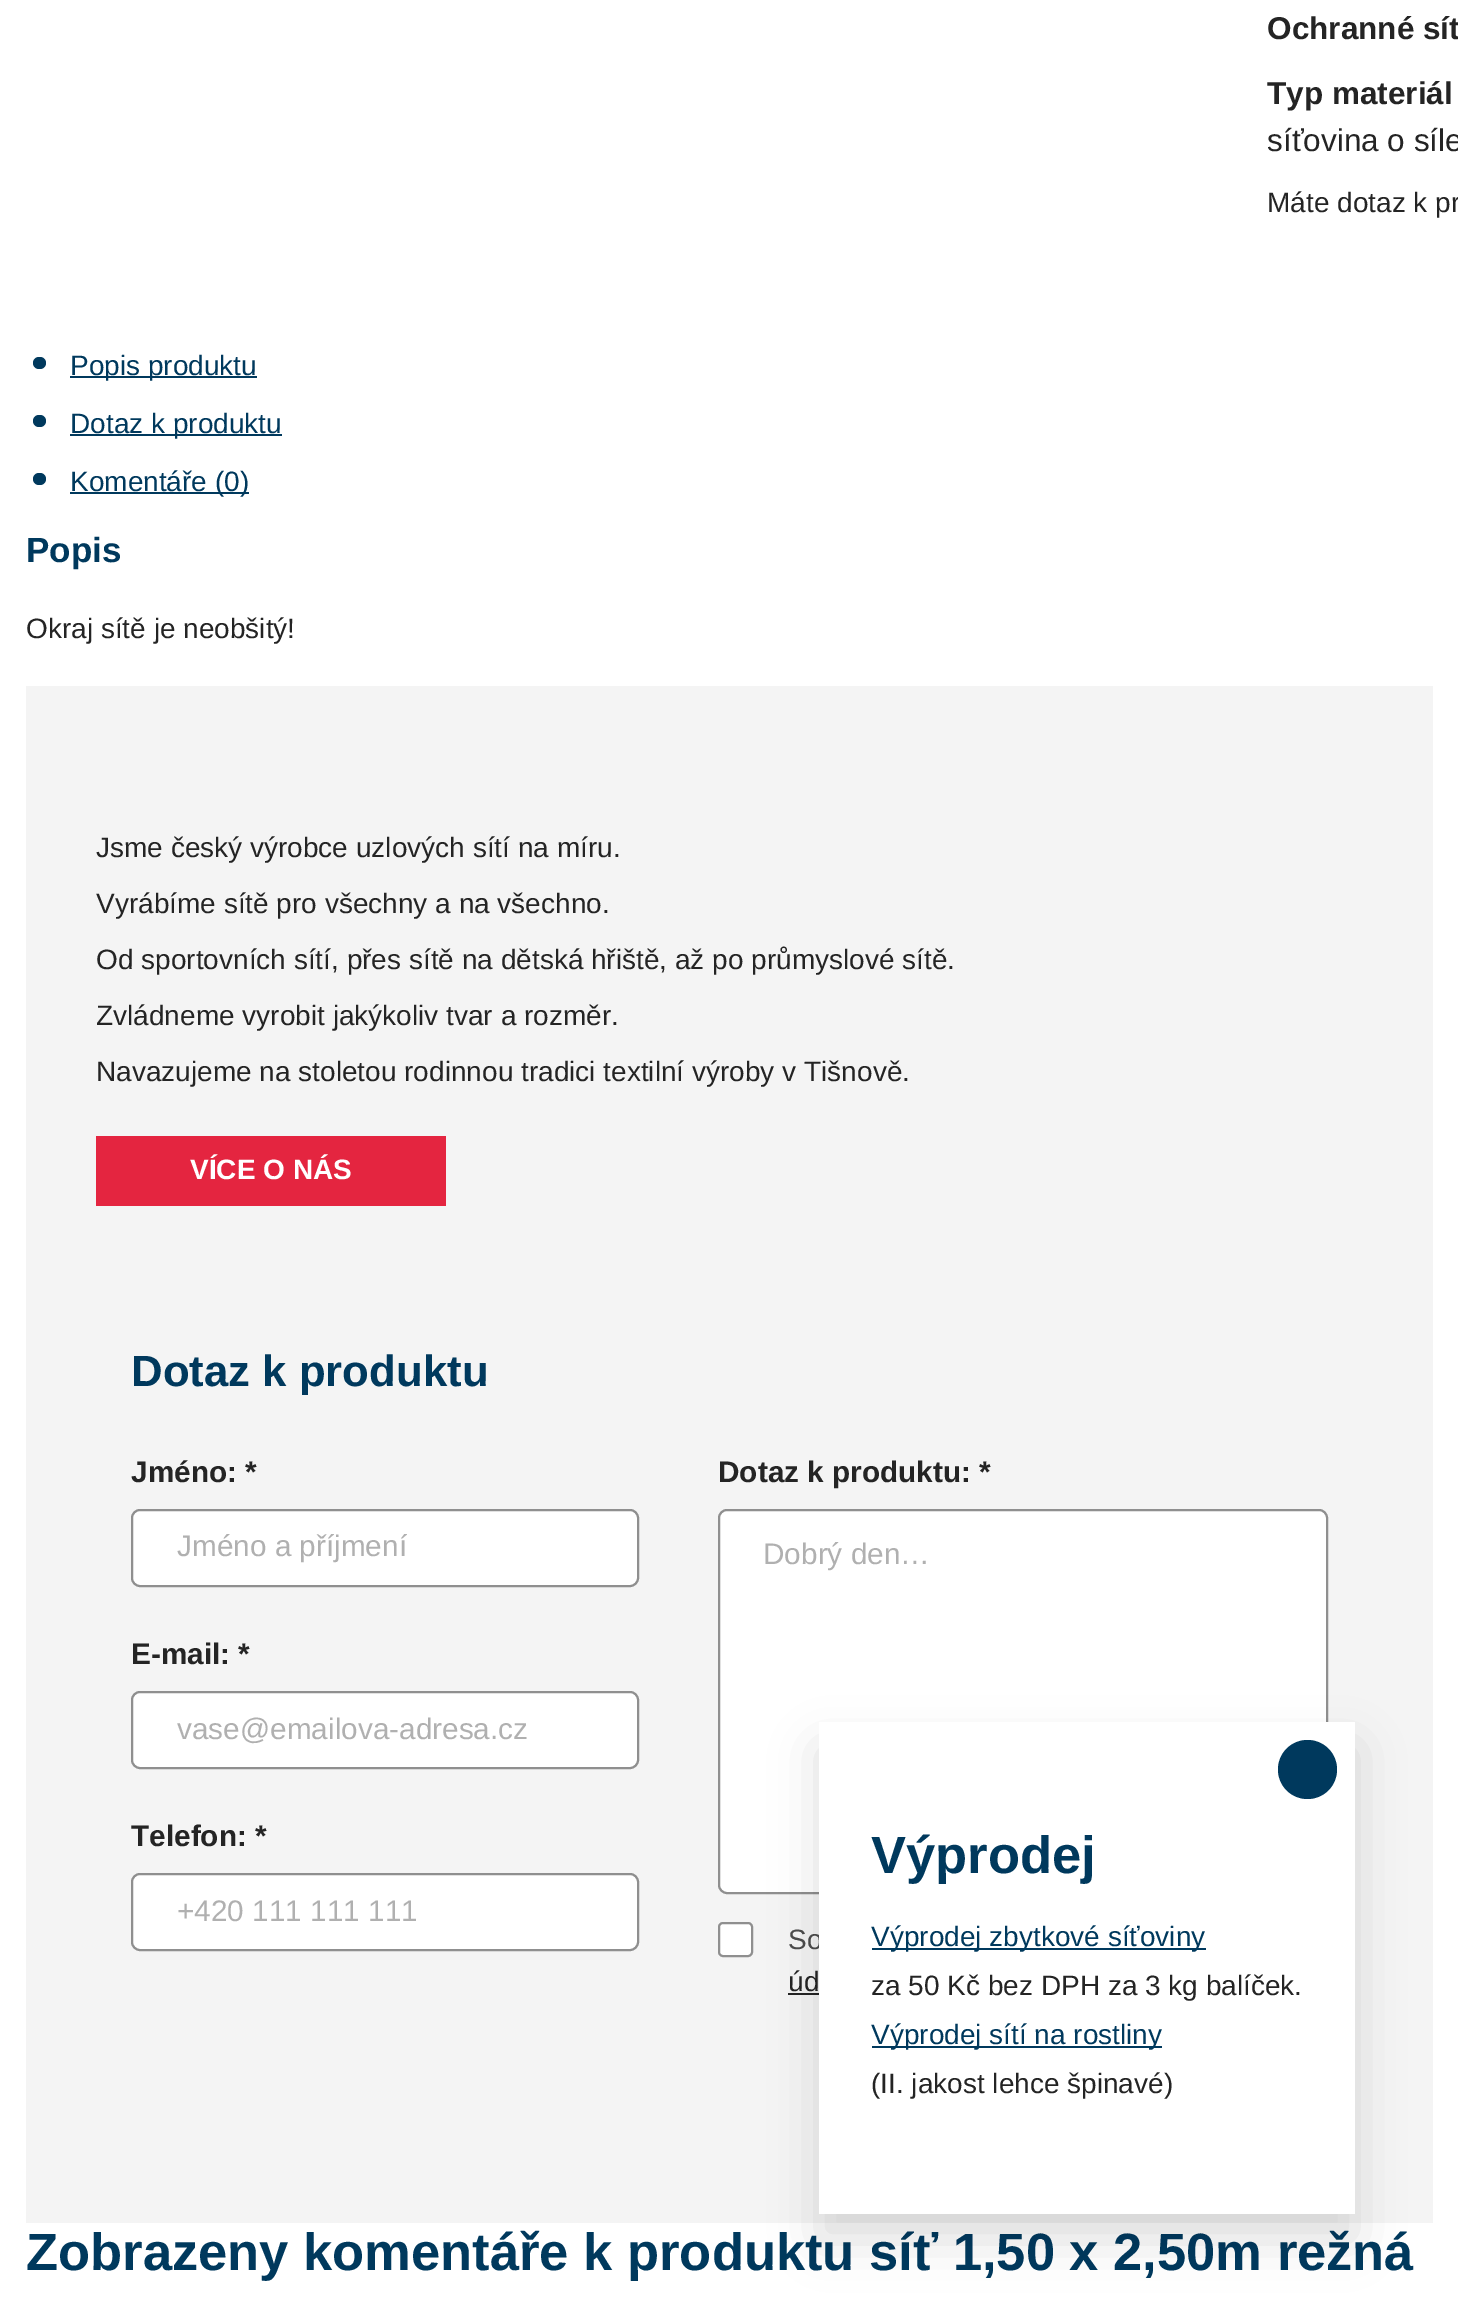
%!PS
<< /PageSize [1458 2300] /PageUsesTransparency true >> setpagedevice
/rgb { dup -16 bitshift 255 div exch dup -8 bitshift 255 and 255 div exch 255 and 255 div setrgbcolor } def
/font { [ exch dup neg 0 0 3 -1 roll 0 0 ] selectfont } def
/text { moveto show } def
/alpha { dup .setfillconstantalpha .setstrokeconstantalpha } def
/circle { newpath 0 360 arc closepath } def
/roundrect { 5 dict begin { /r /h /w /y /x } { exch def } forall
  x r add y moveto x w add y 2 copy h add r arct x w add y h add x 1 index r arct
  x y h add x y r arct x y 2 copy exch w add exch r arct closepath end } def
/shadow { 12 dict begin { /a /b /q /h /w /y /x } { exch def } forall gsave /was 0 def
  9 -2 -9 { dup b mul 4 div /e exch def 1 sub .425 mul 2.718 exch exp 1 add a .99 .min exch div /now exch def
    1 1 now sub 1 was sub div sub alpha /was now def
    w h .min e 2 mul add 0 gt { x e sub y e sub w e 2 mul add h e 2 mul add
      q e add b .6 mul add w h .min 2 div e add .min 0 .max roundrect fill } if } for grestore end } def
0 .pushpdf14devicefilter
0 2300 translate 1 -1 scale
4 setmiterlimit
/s1 { /LiberationSans-Bold 31.5 font 16#242424 rgb } def
/s2 { /LiberationSans-Regular 31.5 font 16#242424 rgb } def
/s3 { /LiberationSans-Regular 28 font 16#242424 rgb } def
/s4 { /LiberationSans-Regular 28 font 16#00395D rgb } def
/s5 { /LiberationSans-Bold 35 font 16#00395D rgb } def
/s6 { /LiberationSans-Bold 28 font 16#FFFFFF rgb } def
/s7 { /LiberationSans-Bold 43.75 font 16#00395D rgb } def
/s8 { /LiberationSans-Bold 29.75 font 16#242424 rgb } def
/s9 { /LiberationSans-Regular 29.75 font 16#B0B0B0 rgb } def
/s10 { /LiberationSans-Regular 28 font 16#4B4B4B rgb } def
/s11 { /LiberationSans-Bold 52.5 font 16#00395D rgb } def
16#FFFFFF rgb
0 0 1458 2300 rectfill
s1
(Ochranné sít) 1267 39 text
(Typ materiál) 1267 104 text
s2
(síťovina o síle) 1267 151 text
s3
(Máte dotaz k pr) 1267 212 text
16#00395D rgb
33 357 13 12 6 roundrect fill
70 376 187 2 rectfill
(Popis produktu) 70 375 text
33 415 13 12 6 roundrect fill
70 434 212 2 rectfill
(Dotaz k produktu) 70 433 text
33 473 13 12 6 roundrect fill
70 492 179 2 rectfill
(Komentáře \(0\)) 70 491 text
s5
(Popis) 26 562 text
s3
(Okraj sítě je neobšitý!) 26 638 text
16#F4F4F4 rgb
26 686 1407 1537 rectfill
s3
(Jsme český výrobce uzlových sítí na míru.) 96 857 text
(Vyrábíme sítě pro všechny a na všechno.) 96 913 text
(Od sportovních sítí, přes sítě na dětská hřiště, až po průmyslové sítě.) 96 969 text
(Zvládneme vyrobit jakýkoliv tvar a rozměr.) 96 1025 text
(Navazujeme na stoletou rodinnou tradici textilní výroby v Tišnově.) 96 1081 text
16#E42540 rgb
96 1136 350 70 rectfill
s6
(VÍCE O NÁS) 190 1179 text
s7
(Dotaz k produktu) 131 1386 text
s8
(Jméno: *) 131 1482 text
16#FFFFFF rgb
132 1510 506 76 8 roundrect gsave fill grestore
16#8F8F8F rgb
2 setlinewidth
stroke
s9
(Jméno a příjmení) 177 1556 text
s8
(E-mail: *) 131 1664 text
16#FFFFFF rgb
132 1692 506 76 8 roundrect gsave fill grestore
16#8F8F8F rgb
stroke
s9
(vase@emailova-adresa.cz) 177 1739 text
s8
(Telefon: *) 131 1846 text
16#FFFFFF rgb
132 1874 506 76 8 roundrect gsave fill grestore
16#8F8F8F rgb
stroke
s9
(+420 111 111 111) 177 1921 text
s8
(Dotaz k produktu: *) 718 1482 text
16#FFFFFF rgb
719 1510 608 383 8 roundrect gsave fill grestore
16#8F8F8F rgb
stroke
s9
(Dobrý den…) 763 1564 text
16#FFFFFF rgb
719 1923 33 33 4 roundrect gsave fill grestore
16#8F8F8F rgb
stroke
s10
(So) 788 1949 text
s3
(úd) 788 1991 text
788 1993 31 2 rectfill
s11
(Zobrazeny komentáře k produktu síť 1,50 x 2,50m režná) 26 2270 text
16#000000 rgb
819 1748 536 492 0 23.5 0.13 shadow
16#FFFFFF rgb
819 1722 536 492 rectfill
16#00395D rgb
1307.5 1769.5 29.5 circle fill
(Výprodej) 871 1873 text
872 1948 334 2 rectfill
s4
(Výprodej zbytkové síťoviny) 871 1946 text
s3
(za 50 Kč bez DPH za 3 kg balíček.) 871 1995 text
16#00395D rgb
872 2046 290 2 rectfill
(Výprodej sítí na rostliny) 871 2044 text
s3
(\(II. jakost lehce špinavé\)) 871 2093 text
.poppdf14devicefilter showpage
